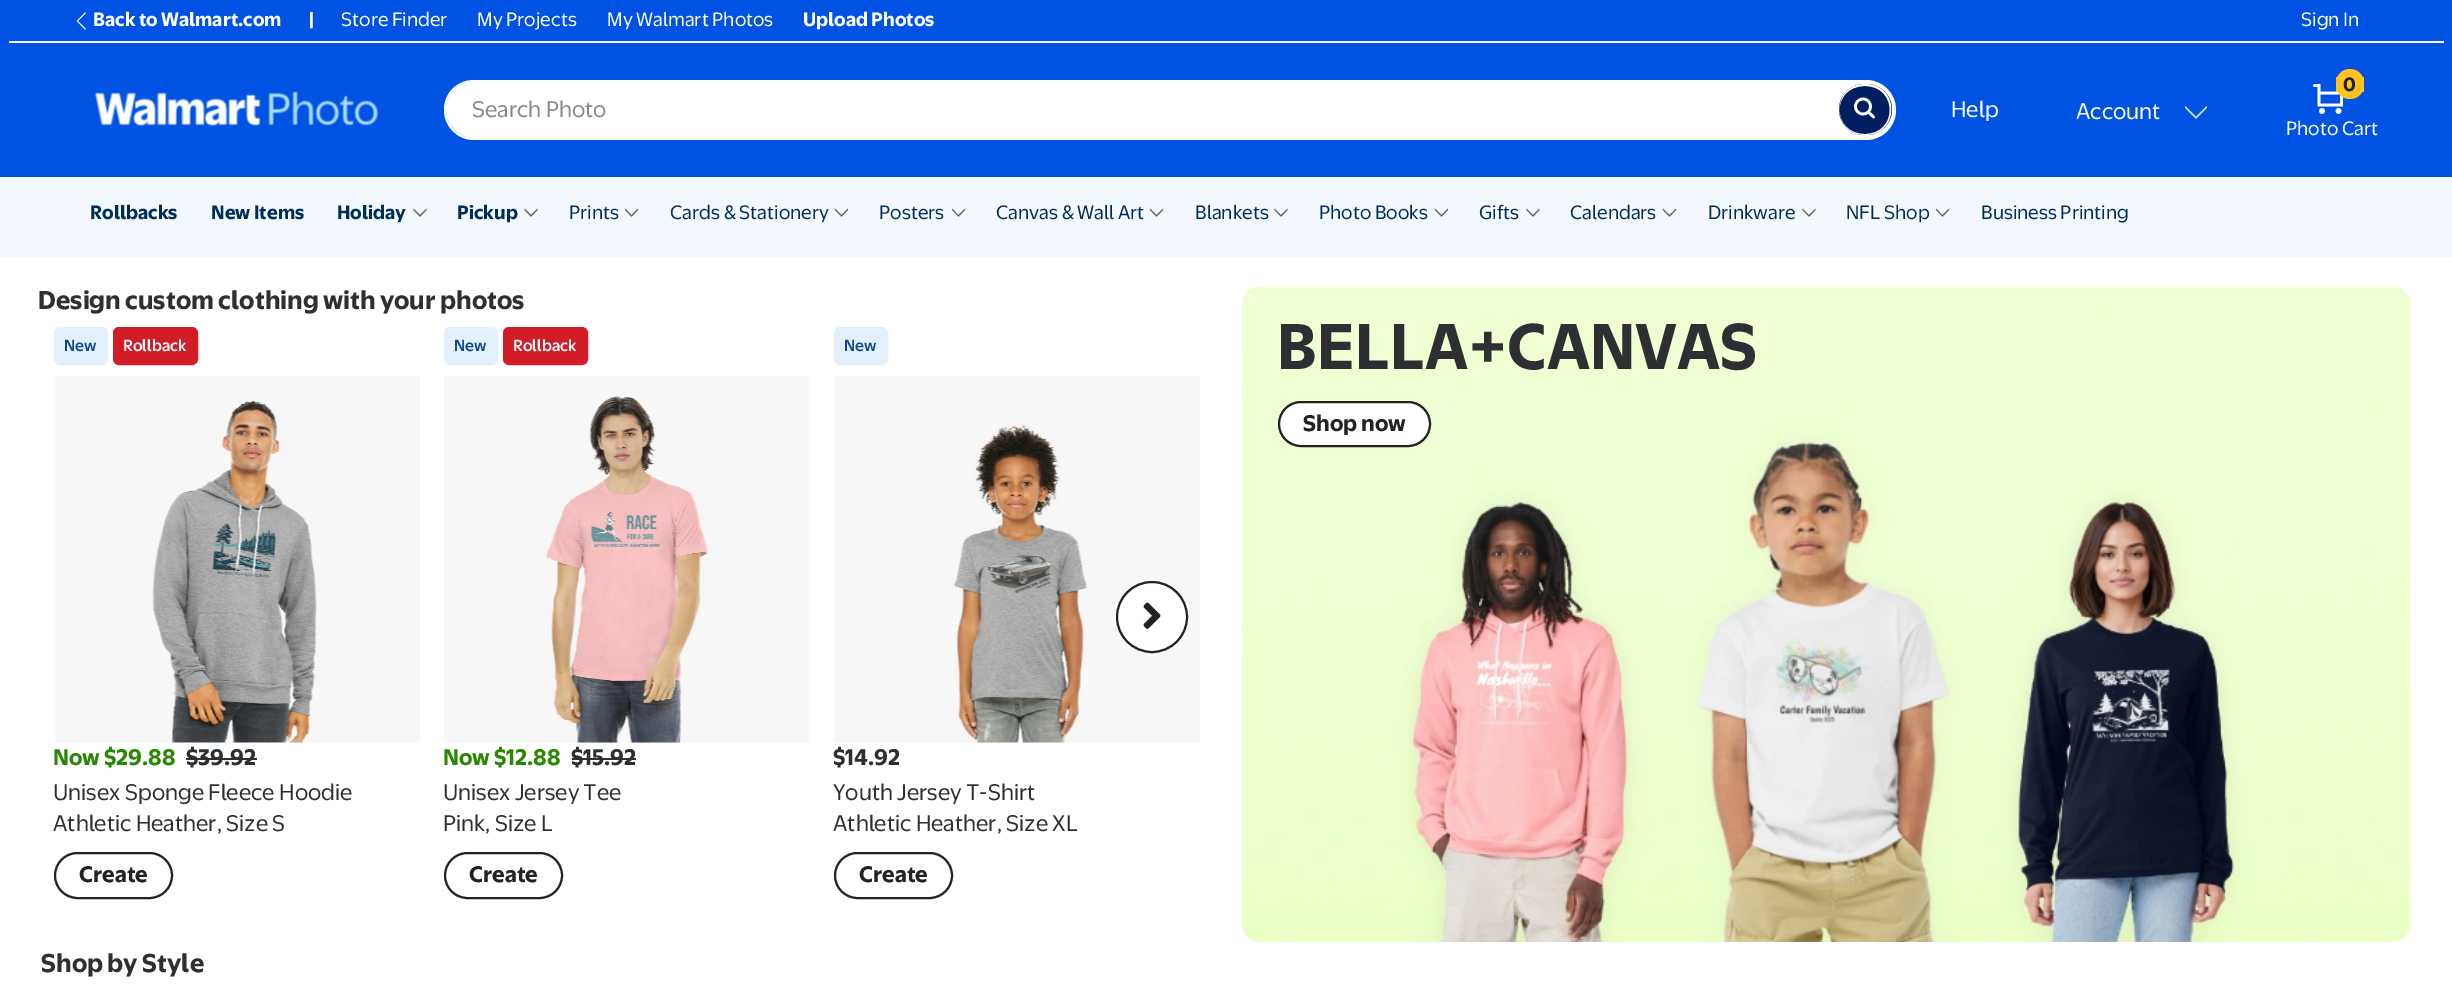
%!PS
<< /PageSize [2452 990] >> setpagedevice
/rgb { dup -16 bitshift 255 div exch dup -8 bitshift 255 and 255 div exch 255 and 255 div setrgbcolor } def
/font { [ exch dup neg 0 0 3 -1 roll 0 0 ] selectfont } def
/text { moveto show } def
/circle { newpath 0 360 arc closepath } def
/roundrect { 5 dict begin { /r /h /w /y /x } { exch def } forall
  x r add y moveto x w add y 2 copy h add r arct x w add y h add x 1 index r arct
  x y h add x y r arct x y 2 copy exch w add exch r arct closepath end } def
/picture { 5 dict begin { /h /w /y /x /name } { exch def } forall
  gsave x y translate w h scale
  w h 8 [w 0 0 h 0 0] name (r) file false 3 colorimage grestore end } def
0 990 translate 1 -1 scale
4 setmiterlimit
/s1 { /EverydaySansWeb-Bold 18 font 16#FFFFFF rgb } def
/s2 { /EverydaySansWeb-Regular 18 font 16#FFFFFF rgb } def
/s3 { /EverydaySansWeb-Regular 21 font 16#888888 rgb } def
/s4 { /EverydaySansWeb-Regular 21 font 16#FFFFFF rgb } def
/s5 { /EverydaySansWeb-Bold 18 font 16#222222 rgb } def
/s6 { /EverydaySansWeb-Bold 18 font 16#002D58 rgb } def
/s7 { /EverydaySansWeb-Regular 18 font 16#002D58 rgb } def
/s8 { /EverydaySansWeb-Bold 24 font 16#2E2F32 rgb } def
/s9 { /EverydaySansWeb-Medium 15 font 16#0F498C rgb } def
/s10 { /EverydaySansWeb-Medium 15 font 16#FFFFFF rgb } def
/s11 { /EverydaySansWeb-Bold 21 font 16#2A8703 rgb } def
/s12 { /EverydaySansWeb-Bold 21 font 16#2E2F32 rgb } def
/s13 { /EverydaySansWeb-Regular 21 font 16#2E2F32 rgb } def
/s14 { /EverydaySansWeb-Bold 21 font 16#222222 rgb } def
/s15 { /EverydaySansWeb-Bold 60 font 16#2E2F32 rgb } def
16#FFFFFF rgb
0 0 2452 990 rectfill
16#0053E2 rgb
0 0 2452 177 rectfill
16#FFFFFF rgb
9 41 2435 2 rectfill
(pic1.raw) 76 12 10 18 picture
s1
(Back to Walmart.com) 93 26 text
(|) 309 26 text
s2
(Store Finder) 341 26 text
(My Projects) 477 26 text
(My Walmart Photos) 607 26 text
s1
(Upload Photos) 803 26 text
s2
(Sign In) 2301 26 text
(pic2.raw) 95 91 284 36 picture
474.5 81 moveto 1839 81 lineto 1839 138 lineto 474.5 138 lineto 459 138 446 125 446 109.5 curveto 446 94 459 81 474.5 81 curveto closepath fill
474 80 moveto 1839 80 lineto 1839 140 lineto 474 140 lineto 457 140 444 126 444 110 curveto 444 93 457 80 474 80 curveto closepath 474 81 moveto 1839 81 lineto 1839 138 lineto 474 138 lineto 458 138 446 125 446 110 curveto 446 94 458 81 474 81 curveto closepath eofill
s3
(Search Photo) 472 117 text
16#FFFFFF rgb
1839 80 moveto 1866 80 lineto 1882.5 80 1896 93.5 1896 110 curveto 1896 126.5 1882.5 140 1866 140 curveto 1839 140 lineto closepath fill
16#001E60 rgb
1839 84 53 51 25.5 roundrect fill
16#FFFFFF rgb
1865 84 moveto 1900 84 1900 135 1865 135 curveto 1831 135 1831 84 1865 84 curveto closepath 1865 86 moveto 1898 86 1898 134 1865 134 curveto 1831 134 1831 86 1865 86 curveto closepath eofill
(pic3.raw) 1854 97 21 22 picture
(Help) 1951 117 text
(Account) 2076 119 text
(pic4.raw) 2184 106 24 13 picture
(pic5.raw) 2313 84 30 30 picture
16#FFC220 rgb
2336 69 28 30 14 roundrect fill
2362 77 2 15 rectfill
2336 77 2 15 rectfill
s5
(0) 2343 91 text
s2
(Photo Cart) 2286 135 text
16#F2F8FD rgb
0 177 2452 80 rectfill
s6
(Rollbacks) 90 219 text
(New Items) 211 219 text
(Holiday) 337 219 text
(pic6.raw) 413 208 14 9 picture
(Pickup) 457 219 text
(pic6.raw) 524 208 14 9 picture
s7
(Prints) 569 219 text
(pic7.raw) 624 208 15 9 picture
(Cards & Stationery) 670 219 text
(pic8.raw) 834 208 15 9 picture
(Posters) 879 219 text
(pic8.raw) 951 208 15 9 picture
(Canvas & Wall Art) 996 219 text
(pic8.raw) 1149 208 15 9 picture
(Blankets) 1195 219 text
(pic9.raw) 1274 208 14 9 picture
(Photo Books) 1319 219 text
(pic8.raw) 1434 208 15 9 picture
(Gifts) 1479 219 text
(pic9.raw) 1526 208 14 9 picture
(Calendars) 1570 219 text
(pic8.raw) 1662 208 15 9 picture
(Drinkware) 1708 219 text
(pic9.raw) 1802 208 14 9 picture
(NFL Shop) 1846 219 text
(pic10.raw) 1935 208 15 9 picture
(Business Printing) 1981 219 text
s8
(Design custom clothing with your photos) 38 309 text
16#E3EFFB rgb
55 328 52 36 5 roundrect gsave fill grestore
2 setlinewidth
stroke
s9
(New) 64 351 text
16#D21C28 rgb
114 328 83 36 5 roundrect gsave fill grestore
stroke
s10
(Rollback) 123 351 text
(pic11.raw) 54 376 366 367 picture
s11
(Now $29.88) 53 765 text
s12
($39.92) 186 765 text
186 758 71 2 rectfill
s13
(Unisex Sponge Fleece Hoodie) 53 800 text
(Athletic Heather, Size S) 53 831 text
16#222222 rgb
55 853 117 45 22.5 roundrect stroke
s14
(Create) 79 882 text
16#E3EFFB rgb
445 328 52 36 5 roundrect gsave fill grestore
stroke
s9
(New) 454 351 text
16#D21C28 rgb
504 328 83 36 5 roundrect gsave fill grestore
stroke
s10
(Rollback) 513 351 text
(pic12.raw) 444 376 366 367 picture
s11
(Now $12.88) 443 765 text
s12
($15.92) 571 765 text
572 758 64 2 rectfill
s13
(Unisex Jersey Tee) 443 800 text
(Pink, Size L) 443 831 text
16#222222 rgb
445 853 117 45 22.5 roundrect stroke
s14
(Create) 469 882 text
16#E3EFFB rgb
835 328 52 36 5 roundrect gsave fill grestore
stroke
s9
(New) 844 351 text
(pic13.raw) 834 376 366 367 picture
s12
($14.92) 833 765 text
s13
(Youth Jersey T-Shirt) 833 800 text
(Athletic Heather, Size XL) 833 831 text
16#222222 rgb
835 853 117 45 22.5 roundrect stroke
s14
(Create) 859 882 text
16#FFFFFF rgb
1152 617 35 circle gsave fill grestore
16#222222 rgb
stroke
(pic14.raw) 1143 602 18 27 picture
(pic15.raw) 1242 286 1169 656 picture
s15
(BELLA+CANVAS) 1277 369 text
16#FFFFFF rgb
1279 402 151 44 22 roundrect gsave fill grestore
16#222222 rgb
stroke
s14
(Shop now) 1303 431 text
s8
(Shop by Style) 41 972 text
showpage
